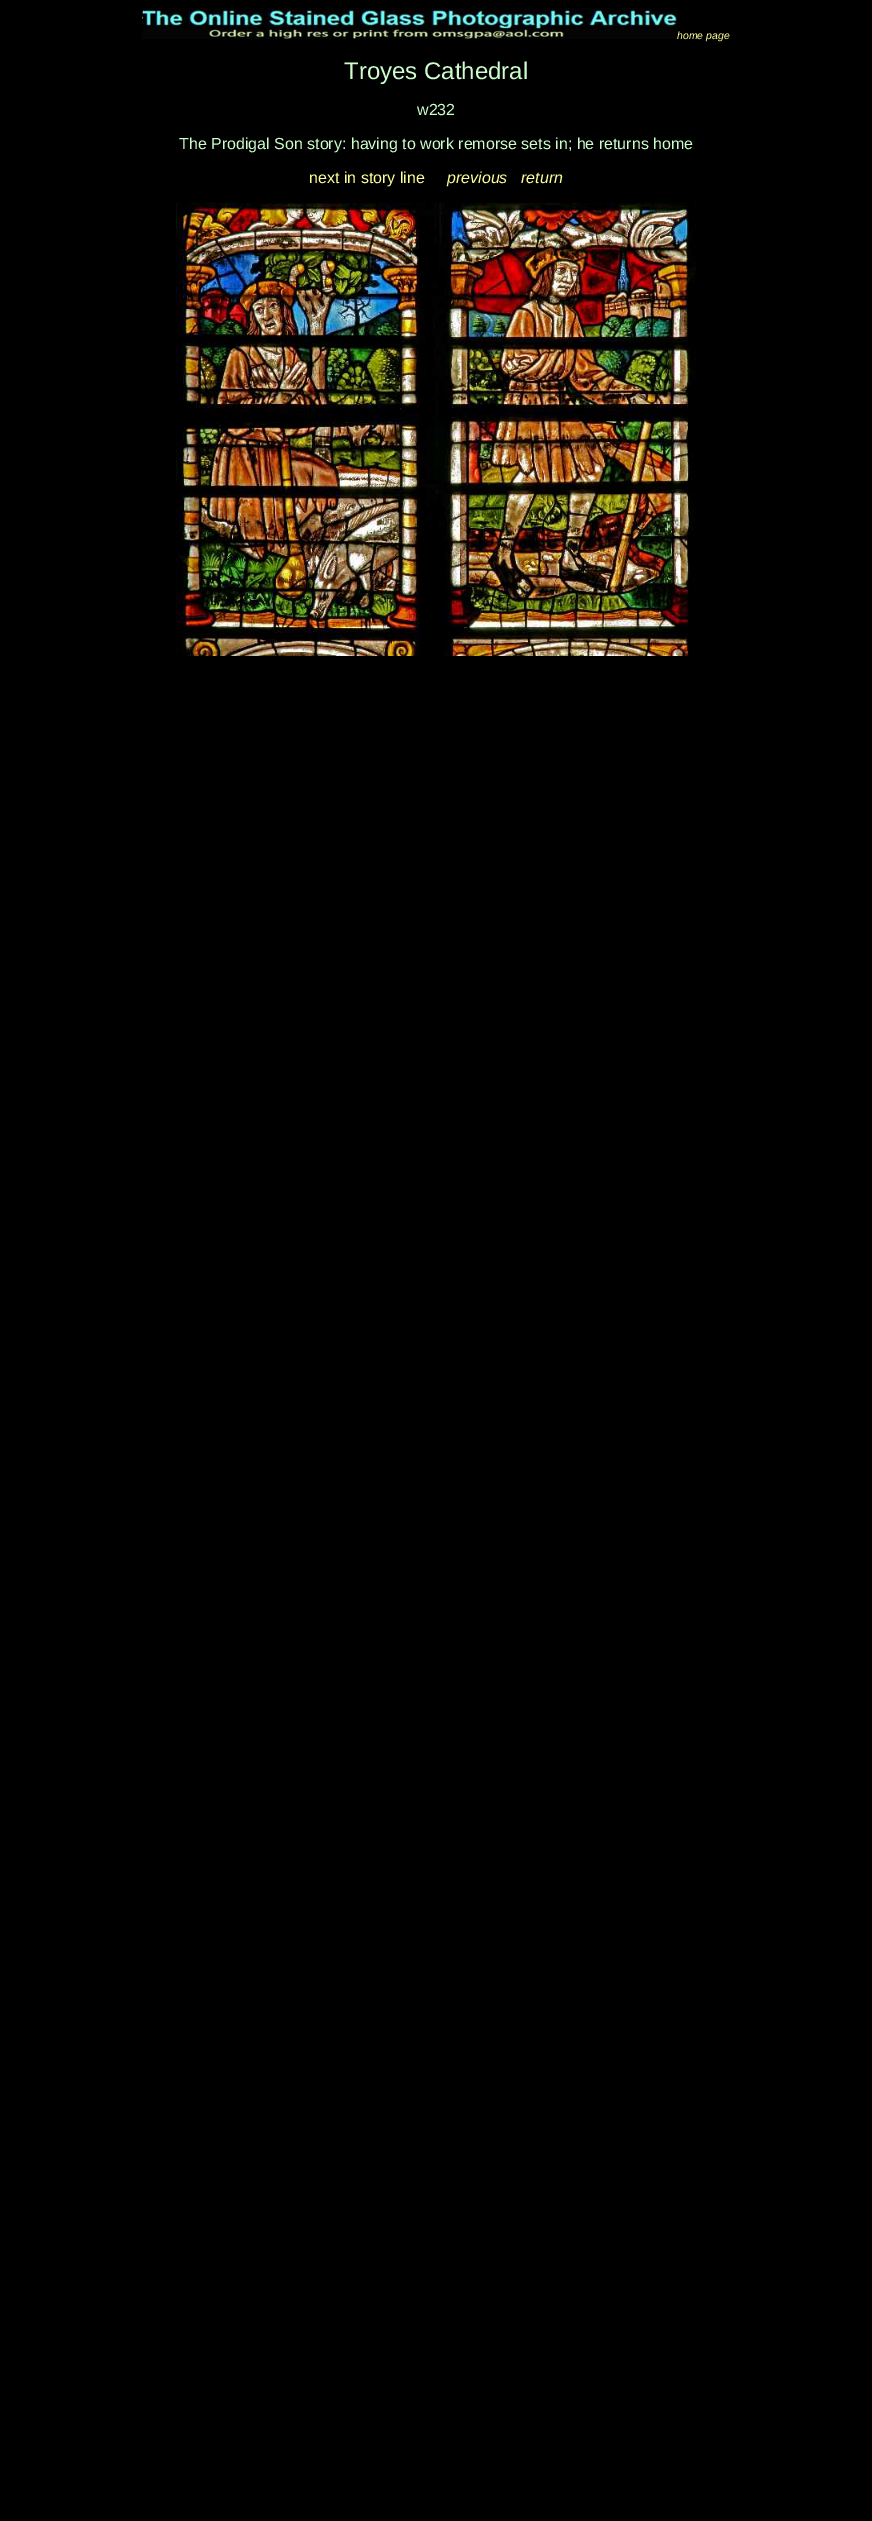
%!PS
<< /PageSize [872 2521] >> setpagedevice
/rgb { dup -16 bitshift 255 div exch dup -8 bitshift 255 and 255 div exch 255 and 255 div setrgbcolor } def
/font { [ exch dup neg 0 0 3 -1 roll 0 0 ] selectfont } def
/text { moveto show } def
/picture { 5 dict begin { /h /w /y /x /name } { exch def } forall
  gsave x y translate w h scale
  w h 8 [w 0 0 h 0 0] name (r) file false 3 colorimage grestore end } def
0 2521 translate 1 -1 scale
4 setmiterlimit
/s1 { /LiberationSans-Italic 10.5 font 16#FFFF99 rgb } def
/s2 { /LiberationSans-Regular 24 font 16#CCFFCC rgb } def
/s3 { /LiberationSans-Regular 16 font 16#CCFFCC rgb } def
/s4 { /LiberationSans-Regular 16 font 16#FFFF99 rgb } def
/s5 { /LiberationSans-Italic 16 font 16#FFFF99 rgb } def
16#000000 rgb
0 0 872 2521 rectfill
(pic1.raw) 142 8 535 31 picture
s1
(home page) 677 39 text
s2
(Troyes Cathedral) 344 79 text
s3
(w232) 417 115 text
(The Prodigal Son story: having to work remorse sets in; he returns home) 179 149 text
s4
(next in story line) 309 183 text
s5
(previous) 447 183 text
(return) 521 183 text
(pic2.raw) 176 203 520 453 picture
showpage
